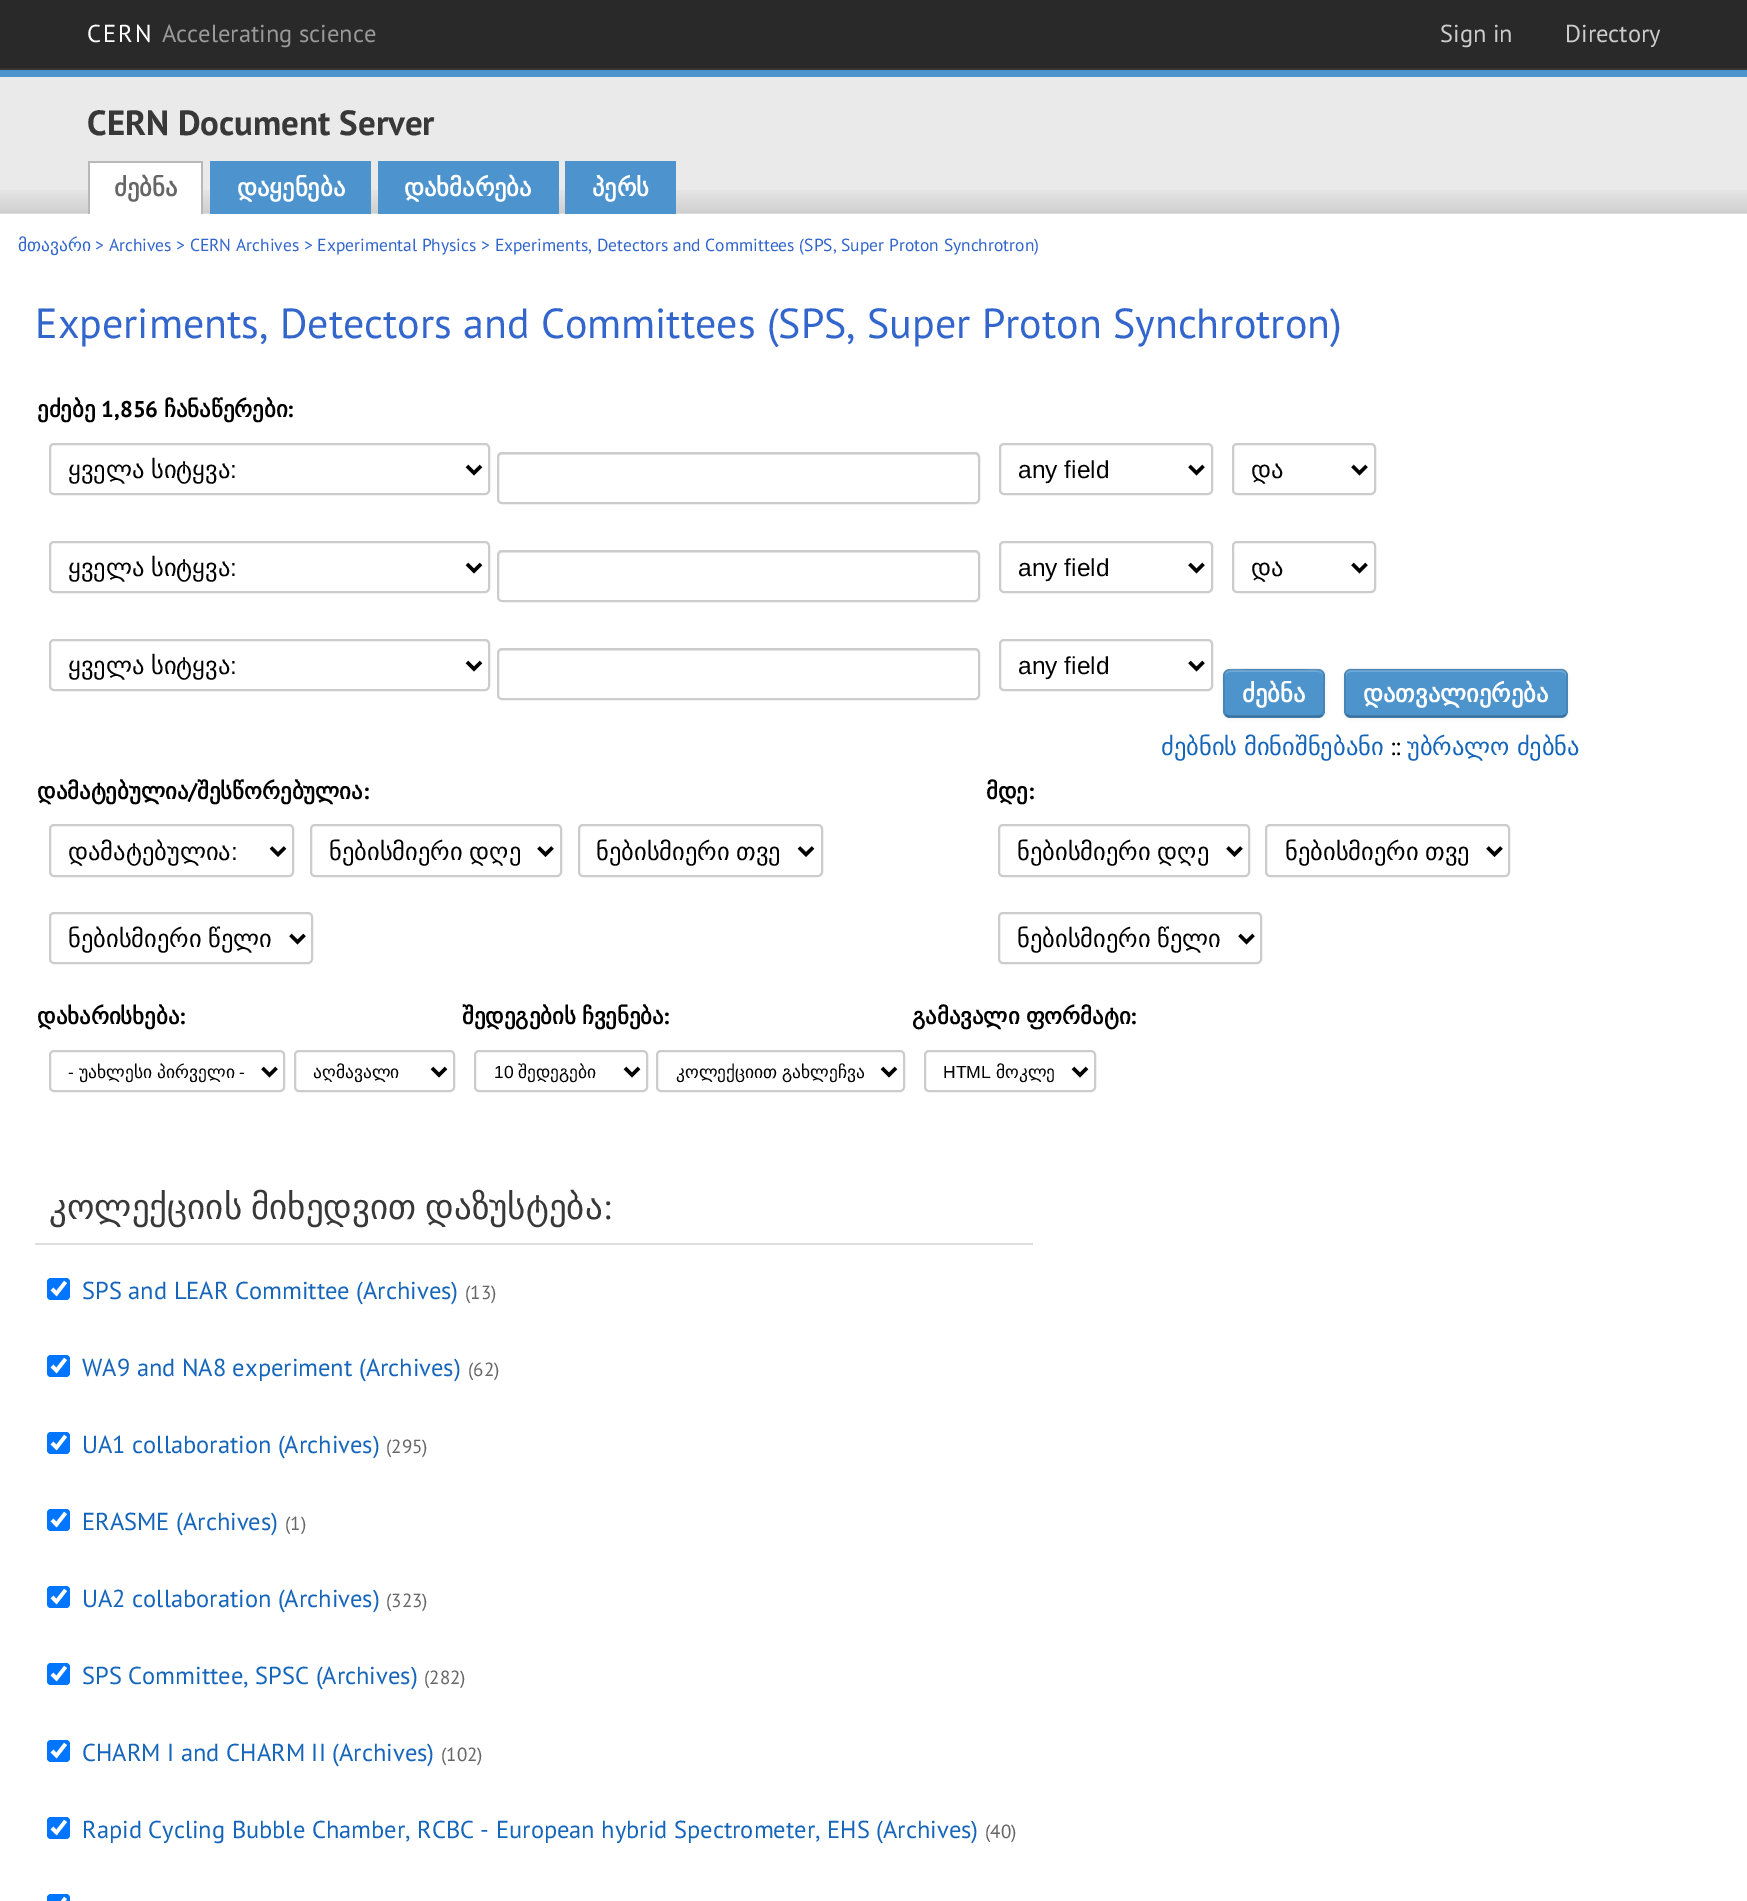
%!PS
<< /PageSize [1747 1901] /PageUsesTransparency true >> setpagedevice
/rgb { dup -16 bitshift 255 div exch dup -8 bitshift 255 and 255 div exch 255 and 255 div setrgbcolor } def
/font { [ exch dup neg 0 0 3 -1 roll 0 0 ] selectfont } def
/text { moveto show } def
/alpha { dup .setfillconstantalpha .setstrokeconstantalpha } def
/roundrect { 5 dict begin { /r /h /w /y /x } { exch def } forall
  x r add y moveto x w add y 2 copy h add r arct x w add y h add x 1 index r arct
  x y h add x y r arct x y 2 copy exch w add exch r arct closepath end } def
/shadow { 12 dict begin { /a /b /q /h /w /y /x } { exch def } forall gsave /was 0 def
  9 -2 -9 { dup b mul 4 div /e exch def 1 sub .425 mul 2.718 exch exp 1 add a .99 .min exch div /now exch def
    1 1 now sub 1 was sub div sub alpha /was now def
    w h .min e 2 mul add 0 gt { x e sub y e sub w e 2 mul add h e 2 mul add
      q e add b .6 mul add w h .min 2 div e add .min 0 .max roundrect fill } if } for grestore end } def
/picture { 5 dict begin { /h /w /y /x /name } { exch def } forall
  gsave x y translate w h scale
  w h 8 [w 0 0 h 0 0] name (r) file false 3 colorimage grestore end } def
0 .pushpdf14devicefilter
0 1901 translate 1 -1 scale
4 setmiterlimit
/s1 { /PTSans-Regular 24.5 font 16#999999 rgb } def
/s2 { /PTSans-Regular 24.5 font 16#CCCCCC rgb } def
/s3 { /PTSans-Bold 35 font 16#383838 rgb } def
/s4 { /DejaVuSans-Bold 24.5 font 16#666666 rgb } def
/s5 { /DejaVuSans-Bold 24.5 font 16#FFFFFF rgb } def
/s6 { /DejaVuSans-Regular 17.5 font 16#3366CC rgb } def
/s7 { /PTSans-Regular 17.5 font 16#3366CC rgb } def
/s8 { /PTSans-Regular 42 font 16#3366CC rgb } def
/s9 { /DejaVuSans-Bold 22.75 font 16#000000 rgb } def
/s10 { /PTSans-Bold 22.75 font 16#000000 rgb } def
/s11 { /LiberationSans-Regular 24.5 font 16#000000 rgb } def
/s12 { /DejaVuSans-Regular 24.5 font 16#000000 rgb } def
/s13 { /PTSans-Regular 24.5 font 16#000000 rgb } def
/s14 { /LiberationSans-Regular 17.5 font 16#000000 rgb } def
/s15 { /DejaVuSans-Regular 17.5 font 16#000000 rgb } def
/s16 { /PTSans-Regular 35 font 16#383838 rgb } def
/s17 { /PTSans-Regular 24.5 font 16#1565BA rgb } def
/s18 { /PTSans-Regular 19 font 16#666666 rgb } def
16#FFFFFF rgb
0 0 1747 1901 rectfill
16#292929 rgb
0 0 1747 68 rectfill
16#353535 rgb
0 68 1747 2 rectfill
/PTSans-Regular 24.5 font
16#FFFFFF rgb
87 42 moveto 2 0 (CERN) ashow
s1
(Accelerating science) 162 42 text
s2
(Sign in) 1440 42 text
(Directory) 1565 42 text
16#EAEAEA rgb
0 77 1747 137 rectfill
(pic1.raw) 0 190 1747 24 picture
16#4D94CC rgb
0 70 1747 7 rectfill
s3
(CERN Document Server) 87 135 text
16#FFFFFF rgb
90 163 111 51 rectfill
16#B8B8B8 rgb
88 161 115 2 rectfill
201 161 2 53 rectfill
88 161 2 53 rectfill
s4
(ძებნა) 114 196 text
16#4D94CE rgb
210 161 161 53 rectfill
s5
(დაყენება) 237 196 text
16#4D94CE rgb
378 161 181 53 rectfill
s5
(დახმარება) 404 196 text
16#4D94CE rgb
565 161 111 53 rectfill
s5
(პერს) 592 196 text
s6
(მთავარი) 18 251 text
s7
(> Archives > CERN Archives > Experimental Physics > Experiments, Detectors and Committees \(SPS, Super Proton Synchrotron\)) 95 251 text
s8
(Experiments, Detectors and Committees \(SPS, Super Proton Synchrotron\)) 35 338 text
s9
(ეძებე) 37 417 text
s10
(1,856) 101 417 text
s9
(ჩანაწერები) 164 417 text
s10
(:) 287 417 text
16#CCCCCC rgb
2 setlinewidth
50 444 439 50 4 roundrect stroke
16#000000 rgb
3.5 setlinewidth
467 466 moveto 474 473 lineto 481 466 lineto stroke
/DejaVuSans-Regular 24.5 font
68 478 moveto -1 0 32 (ყველა სიტყვა) widthshow
s11
(:) 230 478 text
16#ECECEC rgb
502 455 moveto 975 455 lineto 977 455 978 457 978 458 curveto 978 455 977 453 974 453 curveto 503 453 lineto 500 453 499 455 499 458 curveto 499 457 500 455 502 455 curveto closepath fill
16#CCCCCC rgb
2 setlinewidth
498 453 481 50 4 roundrect stroke
1000 444 212 50 4 roundrect stroke
16#000000 rgb
3.5 setlinewidth
1189.5 466 moveto 1196.5 473 lineto 1203.5 466 lineto stroke
(any field) 1018 478 text
16#CCCCCC rgb
2 setlinewidth
1233 444 142 50 4 roundrect stroke
16#000000 rgb
3.5 setlinewidth
1352.5 466 moveto 1359.5 473 lineto 1366.5 466 lineto stroke
s12
(და) 1251 478 text
16#CCCCCC rgb
2 setlinewidth
50 542 439 50 4 roundrect stroke
16#000000 rgb
3.5 setlinewidth
467 564 moveto 474 571 lineto 481 564 lineto stroke
68 576 moveto -1 0 32 (ყველა სიტყვა) widthshow
s11
(:) 230 576 text
16#ECECEC rgb
502 553 moveto 975 553 lineto 977 553 978 555 978 556 curveto 978 553 977 551 974 551 curveto 503 551 lineto 500 551 499 553 499 556 curveto 499 555 500 553 502 553 curveto closepath fill
16#CCCCCC rgb
2 setlinewidth
498 551 481 50 4 roundrect stroke
1000 542 212 50 4 roundrect stroke
16#000000 rgb
3.5 setlinewidth
1189.5 564 moveto 1196.5 571 lineto 1203.5 564 lineto stroke
(any field) 1018 576 text
16#CCCCCC rgb
2 setlinewidth
1233 542 142 50 4 roundrect stroke
16#000000 rgb
3.5 setlinewidth
1352.5 564 moveto 1359.5 571 lineto 1366.5 564 lineto stroke
s12
(და) 1251 576 text
16#CCCCCC rgb
2 setlinewidth
50 640 439 50 4 roundrect stroke
16#000000 rgb
3.5 setlinewidth
467 662 moveto 474 669 lineto 481 662 lineto stroke
68 674 moveto -1 0 32 (ყველა სიტყვა) widthshow
s11
(:) 230 674 text
16#ECECEC rgb
502 651 moveto 975 651 lineto 977 651 978 653 978 654 curveto 978 651 977 649 974 649 curveto 503 649 lineto 500 649 499 651 499 654 curveto 499 653 500 651 502 651 curveto closepath fill
16#CCCCCC rgb
2 setlinewidth
498 649 481 50 4 roundrect stroke
1000 640 212 50 4 roundrect stroke
16#000000 rgb
3.5 setlinewidth
1189.5 662 moveto 1196.5 669 lineto 1203.5 662 lineto stroke
(any field) 1018 674 text
1223 670 102 49 7 2 0.05 shadow
16#4D94CC rgb
1223 669 102 49 7 roundrect fill
16#71A9D6 rgb
1230 672 moveto 1318 672 lineto 1321 672 1323 674 1323 677 curveto 1323 666 1312 670 1303 670 curveto 1245 670 lineto 1236 670 1225 666 1225 677 curveto 1225 674 1227 672 1230 672 curveto closepath fill
16#3A6F99 rgb
1.8 setlinewidth
1322 715 moveto 1321 716 1319.5 716.5 1318 716.5 curveto 1230 716.5 lineto 1228.5 716.5 1227 716 1226 715 curveto stroke
0.1 alpha
16#000000 rgb
1226 715 moveto 1223.5 712 1224 708 1224 704.5 curveto 1224 693 lineto 1224 668 1220 669.5 1245 669.5 curveto 1303 669.5 lineto 1328 669.5 1324 668 1324 693 curveto 1324 704.5 lineto 1324 708 1324.5 712 1322 715 curveto stroke
1 alpha
s5
(ძებნა) 1242 702 text
16#000000 rgb
1344 670 224 49 7 2 0.05 shadow
16#4D94CC rgb
1344 669 224 49 7 roundrect fill
16#71A9D6 rgb
1351 672 moveto 1561 672 lineto 1564 672 1566 674 1566 677 curveto 1566 675 lineto 1566 672 1564 670 1561 670 curveto 1351 670 lineto 1348 670 1346 672 1346 675 curveto 1346 677 lineto 1346 674 1348 672 1351 672 curveto closepath fill
0.25 alpha
16#000000 rgb
1565.5 715 moveto 1564 716 1562.5 716.5 1561 716.5 curveto 1351 716.5 lineto 1349.5 716.5 1348 716 1346.5 715 curveto stroke
0.1 alpha
1346.5 715 moveto 1345.5 713.5 1345 712 1345 710.5 curveto 1345 675.5 lineto 1345 674 1345.5 672.5 1346.5 671 curveto 1348 670 1349.5 669.5 1351 669.5 curveto 1561 669.5 lineto 1562.5 669.5 1564 670 1565.5 671 curveto 1566.5 672.5 1567 674 1567 675.5 curveto 1567 710.5 lineto 1567 712 1566.5 713.5 1565.5 715 curveto stroke
1 alpha
s5
(დათვალიერება) 1363 702 text
/DejaVuSans-Regular 24.5 font
16#1565BA rgb
1161 755 moveto -1 0 32 (ძებნის მინიშნებანი) widthshow
s13
(::) 1390 755 text
/DejaVuSans-Regular 24.5 font
16#1565BA rgb
1407 755 moveto -1 0 32 (უბრალო ძებნა) widthshow
s9
(დამატებულია) 37 799 text
s10
(/) 188 799 text
s9
(შესწორებულია) 197 799 text
s10
(:) 363 799 text
s9
(მდე) 986 799 text
s10
(:) 1028 799 text
16#CCCCCC rgb
2 setlinewidth
50 825 243 51 4 roundrect stroke
16#000000 rgb
3.5 setlinewidth
271 847.5 moveto 278 854.5 lineto 285 847.5 lineto stroke
s12
(დამატებულია) 68 860 text
s11
(:) 231 860 text
16#CCCCCC rgb
2 setlinewidth
311 825 250 51 4 roundrect stroke
16#000000 rgb
3.5 setlinewidth
538.5 847.5 moveto 545.5 854.5 lineto 552.5 847.5 lineto stroke
/DejaVuSans-Regular 24.5 font
329 860 moveto -1 0 32 (ნებისმიერი დღე) widthshow
16#CCCCCC rgb
2 setlinewidth
579 825 243 51 4 roundrect stroke
16#000000 rgb
3.5 setlinewidth
799 847.5 moveto 806 854.5 lineto 813 847.5 lineto stroke
596 860 moveto -1 0 32 (ნებისმიერი თვე) widthshow
16#CCCCCC rgb
2 setlinewidth
50 913 262 50 4 roundrect stroke
16#000000 rgb
3.5 setlinewidth
290.5 935 moveto 297.5 942 lineto 304.5 935 lineto stroke
68 947 moveto -1 0 32 (ნებისმიერი წელი) widthshow
16#CCCCCC rgb
2 setlinewidth
999 825 250 51 4 roundrect stroke
16#000000 rgb
3.5 setlinewidth
1227.5 847.5 moveto 1234.5 854.5 lineto 1241.5 847.5 lineto stroke
1017 860 moveto -1 0 32 (ნებისმიერი დღე) widthshow
16#CCCCCC rgb
2 setlinewidth
1266 825 243 51 4 roundrect stroke
16#000000 rgb
3.5 setlinewidth
1487.5 847.5 moveto 1494.5 854.5 lineto 1501.5 847.5 lineto stroke
1285 860 moveto -1 0 32 (ნებისმიერი თვე) widthshow
16#CCCCCC rgb
2 setlinewidth
999 913 262 50 4 roundrect stroke
16#000000 rgb
3.5 setlinewidth
1239.5 935 moveto 1246.5 942 lineto 1253.5 935 lineto stroke
1017 947 moveto -1 0 32 (ნებისმიერი წელი) widthshow
s9
(დახარისხება) 37 1024 text
s10
(:) 179 1024 text
/DejaVuSans-Bold 22.75 font
462 1024 moveto -1 0 32 (შედეგების ჩვენება) widthshow
s10
(:) 663 1024 text
/DejaVuSans-Bold 22.75 font
912 1024 moveto -1 0 32 (გამავალი ფორმატი) widthshow
s10
(:) 1130 1024 text
16#CCCCCC rgb
2 setlinewidth
50 1051 234 40 4 roundrect stroke
16#000000 rgb
3.5 setlinewidth
262.5 1068 moveto 269.5 1075 lineto 276.5 1068 lineto stroke
s14
(-) 68 1078 text
s15
(უახლესი პირველი) 79 1078 text
s14
(-) 239 1078 text
16#CCCCCC rgb
2 setlinewidth
295 1051 159 40 4 roundrect stroke
16#000000 rgb
3.5 setlinewidth
432 1068 moveto 439 1075 lineto 446 1068 lineto stroke
s15
(აღმავალი) 313 1078 text
16#CCCCCC rgb
2 setlinewidth
475 1051 172 40 4 roundrect stroke
16#000000 rgb
3.5 setlinewidth
625 1068 moveto 632 1075 lineto 639 1068 lineto stroke
s14
(10) 494 1078 text
s15
(შედეგები) 518 1078 text
16#CCCCCC rgb
2 setlinewidth
657 1051 247 40 4 roundrect stroke
16#000000 rgb
3.5 setlinewidth
882 1068 moveto 889 1075 lineto 896 1068 lineto stroke
676 1078 moveto -1 0 32 (კოლექციით გახლეჩვა) widthshow
16#CCCCCC rgb
2 setlinewidth
925 1051 170 40 4 roundrect stroke
16#000000 rgb
3.5 setlinewidth
1073 1068 moveto 1080 1075 lineto 1087 1068 lineto stroke
s14
(HTML) 943 1078 text
s15
(მოკლე) 996 1078 text
16#DDDDDD rgb
35 1243 998 2 rectfill
/DejaVuSans-Regular 35 font
16#383838 rgb
49 1219 moveto -2 0 32 (კოლექციის მიხედვით დაზუსტება) widthshow
s16
(:) 603 1219 text
16#0075FF rgb
47 1278 23 22 4 roundrect fill
16#FFFFFF rgb
3.6 setlinewidth
52 1289 moveto 56.5 1293.5 lineto 65.5 1282 lineto stroke
s17
(SPS and LEAR Committee \(Archives\)) 82 1299 text
s18
(\(13\)) 465 1299 text
16#0075FF rgb
47 1355 23 22 4 roundrect fill
16#FFFFFF rgb
52 1366 moveto 56.5 1370.5 lineto 65.5 1359 lineto stroke
s17
(WA9 and NA8 experiment \(Archives\)) 82 1376 text
s18
(\(62\)) 468 1376 text
16#0075FF rgb
47 1432 23 22 4 roundrect fill
16#FFFFFF rgb
52 1443 moveto 56.5 1447.5 lineto 65.5 1436 lineto stroke
s17
(UA1 collaboration \(Archives\)) 82 1453 text
s18
(\(295\)) 386 1453 text
16#0075FF rgb
47 1509 23 22 4 roundrect fill
16#FFFFFF rgb
52 1520 moveto 56.5 1524.5 lineto 65.5 1513 lineto stroke
s17
(ERASME \(Archives\)) 82 1530 text
s18
(\(1\)) 285 1530 text
16#0075FF rgb
47 1586 23 22 4 roundrect fill
16#FFFFFF rgb
52 1597 moveto 56.5 1601.5 lineto 65.5 1590 lineto stroke
s17
(UA2 collaboration \(Archives\)) 82 1607 text
s18
(\(323\)) 386 1607 text
16#0075FF rgb
47 1663 23 22 4 roundrect fill
16#FFFFFF rgb
52 1674 moveto 56.5 1678.5 lineto 65.5 1667 lineto stroke
s17
(SPS Committee, SPSC \(Archives\)) 82 1684 text
s18
(\(282\)) 424 1684 text
16#0075FF rgb
47 1740 23 22 4 roundrect fill
16#FFFFFF rgb
52 1751 moveto 56.5 1755.5 lineto 65.5 1744 lineto stroke
s17
(CHARM I and CHARM II \(Archives\)) 82 1761 text
s18
(\(102\)) 441 1761 text
16#0075FF rgb
47 1817 23 22 4 roundrect fill
16#FFFFFF rgb
52 1828 moveto 56.5 1832.5 lineto 65.5 1821 lineto stroke
s17
(Rapid Cycling Bubble Chamber, RCBC - European hybrid Spectrometer, EHS \(Archives\)) 82 1838 text
s18
(\(40\)) 985 1838 text
16#0075FF rgb
47 1894 23 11 4 roundrect fill
16#FFFFFF rgb
52 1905 moveto 56.5 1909.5 lineto 65.5 1898 lineto stroke
.poppdf14devicefilter showpage
